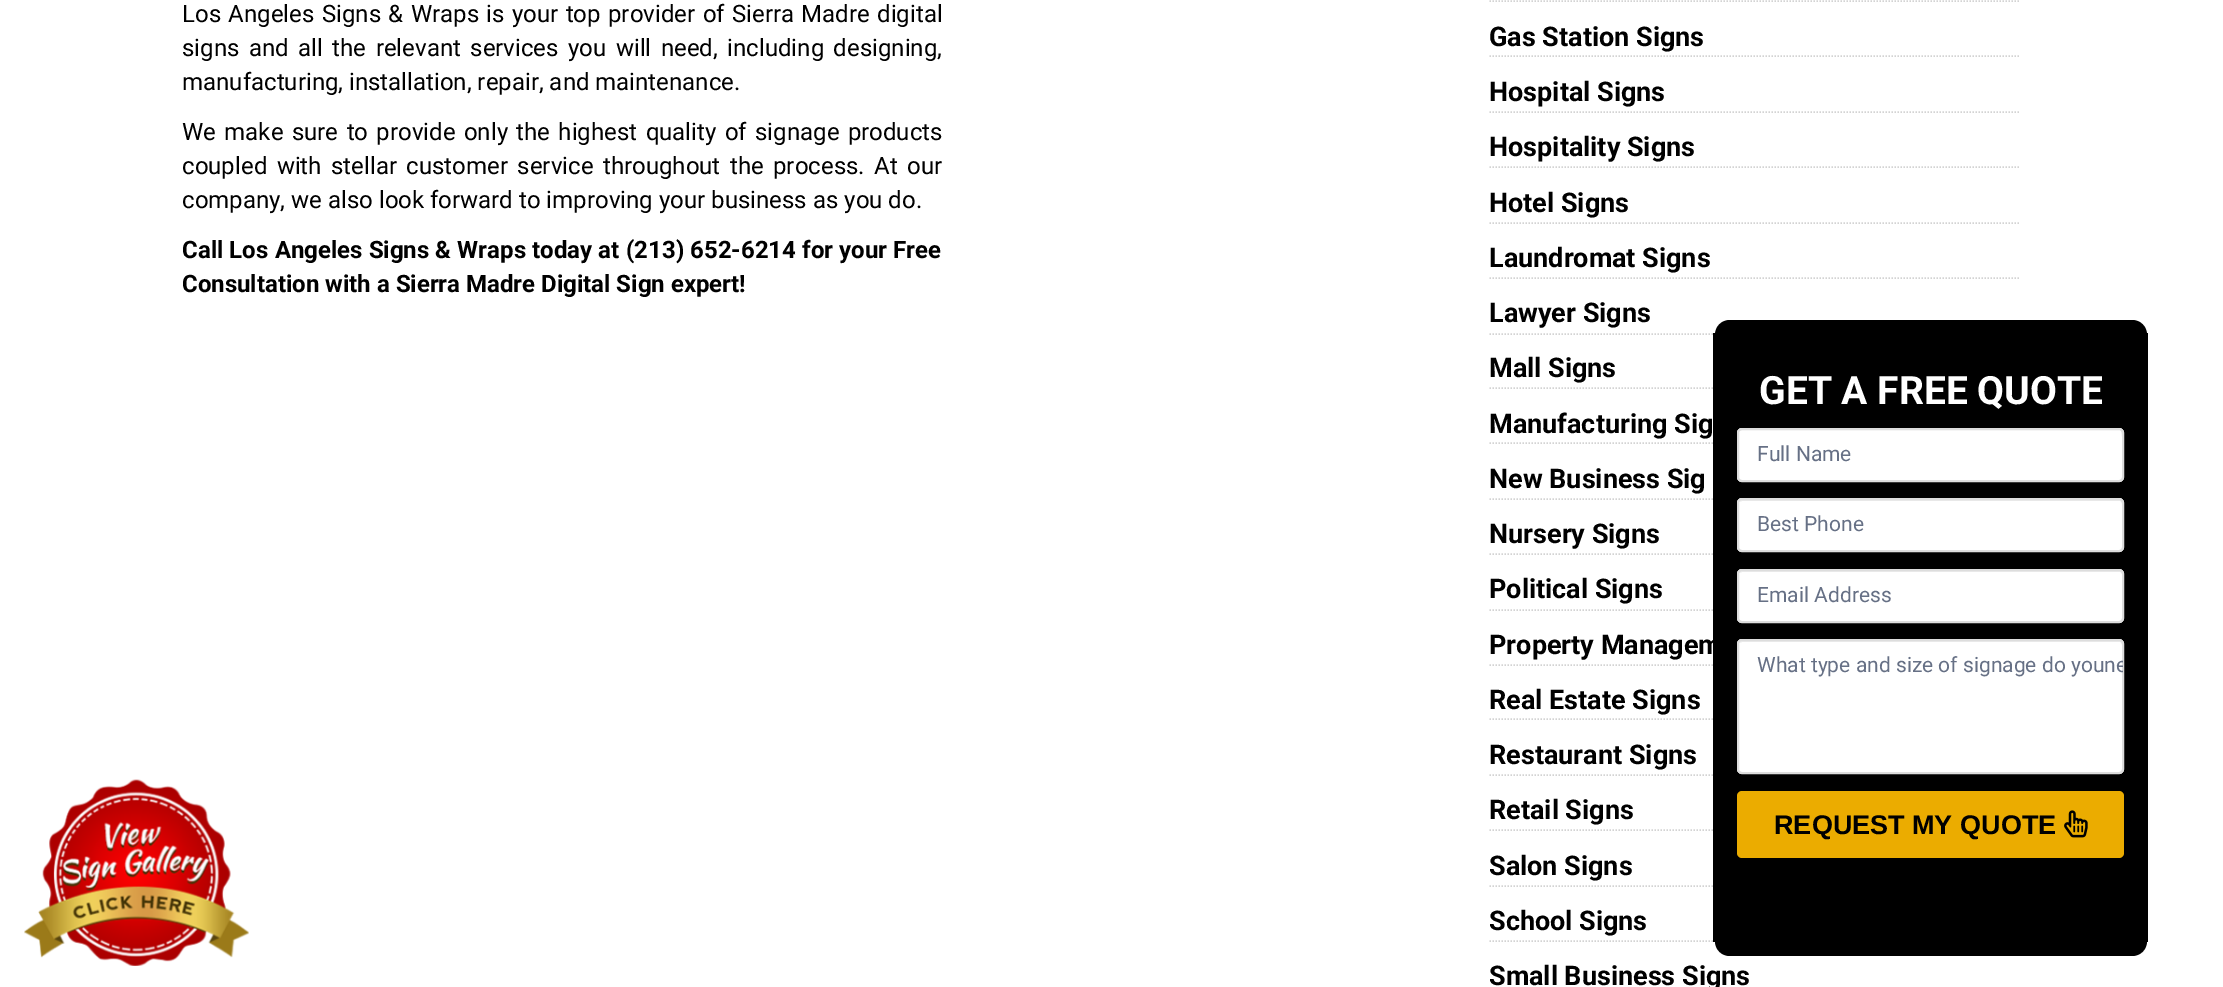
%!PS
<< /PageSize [2223 987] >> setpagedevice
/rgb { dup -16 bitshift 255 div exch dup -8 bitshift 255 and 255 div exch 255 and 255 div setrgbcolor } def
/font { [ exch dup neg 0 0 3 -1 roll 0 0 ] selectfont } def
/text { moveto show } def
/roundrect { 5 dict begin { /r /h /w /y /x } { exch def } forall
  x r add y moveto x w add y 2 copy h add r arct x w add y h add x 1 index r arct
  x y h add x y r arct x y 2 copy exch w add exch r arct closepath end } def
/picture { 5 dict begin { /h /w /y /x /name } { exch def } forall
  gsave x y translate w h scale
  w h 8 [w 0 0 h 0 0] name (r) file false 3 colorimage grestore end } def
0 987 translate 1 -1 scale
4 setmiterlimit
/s1 { /Roboto-Regular 24 font 16#000000 rgb } def
/s2 { /Roboto-Bold 24 font 16#000000 rgb } def
/s3 { /Roboto-Bold 27 font 16#000000 rgb } def
/s4 { /Roboto-Bold 39 font 16#FFFFFF rgb } def
/s5 { /Roboto-Regular 21 font 16#667085 rgb } def
/s6 { /LiberationSans-Bold 27 font 16#000000 rgb } def
16#FFFFFF rgb
0 0 2223 987 rectfill
(pic1.raw) 24 779 225 187 picture
/Roboto-Regular 24 font
16#000000 rgb
182 22 moveto 1.4 0 32 (Los Angeles Signs & Wraps is your top provider of Sierra Madre digital) widthshow
182 56 moveto 3.5 0 32 (signs and all the relevant services you will need, including designing,) widthshow
(manufacturing, installation, repair, and maintenance.) 182 90 text
182 140 moveto 2.4 0 32 (We make sure to provide only the highest quality of signage products) widthshow
182 174 moveto 3.5 0 32 (coupled with stellar customer service throughout the process. At our) widthshow
(company, we also look forward to improving your business as you do.) 182 208 text
/Roboto-Bold 24 font
182 258 moveto 0.25 0 32 (Call Los Angeles Signs & Wraps today at) widthshow
(\(213\) 652-6214) 626 258 text
802 258 moveto 0.25 0 32 (for your Free) widthshow
(Consultation with a Sierra Madre Digital Sign expert!) 182 292 text
16#D3D3D3 rgb
1.5 setlinewidth
[1.5 1.5] 0 setdash
1489.5 1 moveto 2019 1 lineto stroke
1489.5 56 moveto 2019 56 lineto stroke
s3
(Gas Station Signs) 1489 46 text
16#D3D3D3 rgb
1489.5 112 moveto 2019 112 lineto stroke
s3
(Hospital Signs) 1489 101 text
16#D3D3D3 rgb
1489.5 167 moveto 2019 167 lineto stroke
s3
(Hospitality Signs) 1489 156 text
16#D3D3D3 rgb
1489.5 223 moveto 2019 223 lineto stroke
s3
(Hotel Signs) 1489 212 text
16#D3D3D3 rgb
1489.5 278 moveto 2019 278 lineto stroke
s3
(Laundromat Signs) 1489 267 text
16#D3D3D3 rgb
1489.5 334 moveto 2019 334 lineto stroke
s3
(Lawyer Signs) 1489 322 text
16#D3D3D3 rgb
1489.5 388 moveto 2019 388 lineto stroke
s3
(Mall Signs) 1489 377 text
16#D3D3D3 rgb
1489.5 443 moveto 2019 443 lineto stroke
s3
(Manufacturing Sig) 1489 433 text
16#D3D3D3 rgb
1489.5 499 moveto 2019 499 lineto stroke
s3
(New Business Sig) 1489 488 text
16#D3D3D3 rgb
1489.5 554 moveto 2019 554 lineto stroke
s3
(Nursery Signs) 1489 543 text
16#D3D3D3 rgb
1489.5 610 moveto 2019 610 lineto stroke
s3
(Political Signs) 1489 598 text
16#D3D3D3 rgb
1489.5 665 moveto 2019 665 lineto stroke
s3
(Property Managem) 1489 654 text
16#D3D3D3 rgb
1489.5 719 moveto 2019 719 lineto stroke
s3
(Real Estate Signs) 1489 709 text
16#D3D3D3 rgb
1489.5 775 moveto 2019 775 lineto stroke
s3
(Restaurant Signs) 1489 764 text
16#D3D3D3 rgb
1489.5 830 moveto 2019 830 lineto stroke
s3
(Retail Signs) 1489 819 text
16#D3D3D3 rgb
1489.5 886 moveto 2019 886 lineto stroke
s3
(Salon Signs) 1489 875 text
16#D3D3D3 rgb
1489.5 941 moveto 2019 941 lineto stroke
s3
(School Signs) 1489 930 text
(Small Business Signs) 1489 985 text
1713 333 435 609 rectfill
1730 320 moveto 2132 320 lineto 2140.5 320 2147 326.5 2147 335 curveto 1715 335 lineto 1715 326.5 1721.5 320 1730 320 curveto closepath fill
s4
(GET A FREE QUOTE) 1759 404 text
1737 428 387 54 5 roundrect fill
16#ECECEC rgb
1742 430 moveto 2120 430 lineto 2123 430 2122 447 2122 449 curveto 2122 479 lineto 2123 479 2123 478 2123 477 curveto 2123 432 lineto 2123 430 2122 429 2120 429 curveto 1742 429 lineto 1741 429 1739 430 1739 431 curveto closepath fill
16#DDDDDD rgb
2 setlinewidth
[] 0 setdash
1738 429 385 52 4 roundrect stroke
s5
(Full Name) 1757 461 text
16#FFFFFF rgb
1737 498 387 54 5 roundrect fill
16#ECECEC rgb
1742 501 moveto 2120 501 lineto 2121 501 2122 502 2122 504 curveto 2122 550 lineto 2123 550 2123 549 2123 548 curveto 2123 503 lineto 2123 501 2122 500 2120 500 curveto 1742 500 lineto 1741 500 1740 501 1739 502 curveto closepath fill
16#DDDDDD rgb
1738 499 385 52 4 roundrect stroke
s5
(Best Phone) 1757 531 text
16#FFFFFF rgb
1737 569 387 54 5 roundrect fill
16#ECECEC rgb
1742 572 moveto 2120 572 lineto 2121 572 2122 573 2122 574 curveto 2122 620 lineto 2123 620 2123 619 2123 618 curveto 2123 573 lineto 2123 571 2122 570 2120 570 curveto 1742 570 lineto 1740 570 1739 571 1739 573 curveto closepath fill
16#DDDDDD rgb
1738 570 385 52 4 roundrect stroke
s5
(Email Address) 1757 602 text
16#FFFFFF rgb
1737 639 387 135 5 roundrect fill
16#ECECEC rgb
1742 642 moveto 2120 642 lineto 2121 642 2122 643 2122 645 curveto 2122 772 lineto 2123 772 2123 771 2123 770 curveto 2123 644 lineto 2123 642 2122 641 2120 641 curveto 1742 641 lineto 1741 641 1740 642 1739 643 curveto closepath fill
16#DDDDDD rgb
1738 640 385 133 4 roundrect stroke
s5
(What type and size of signage do you) 1757 672 text
gsave
1739 641 384 132 3 roundrect clip newpath
(ne) 2104 672 text
grestore
16#EBAC00 rgb
1737 791 387 67 5 roundrect fill
s6
(REQUEST MY QUOTE) 1774 834 text
(pic2.raw) 2064 810 24 28 picture
1715 941 moveto 2147 941 lineto 2147 949.5 2140.5 956 2132 956 curveto 1730 956 lineto 1721.5 956 1715 949.5 1715 941 curveto closepath fill
showpage
